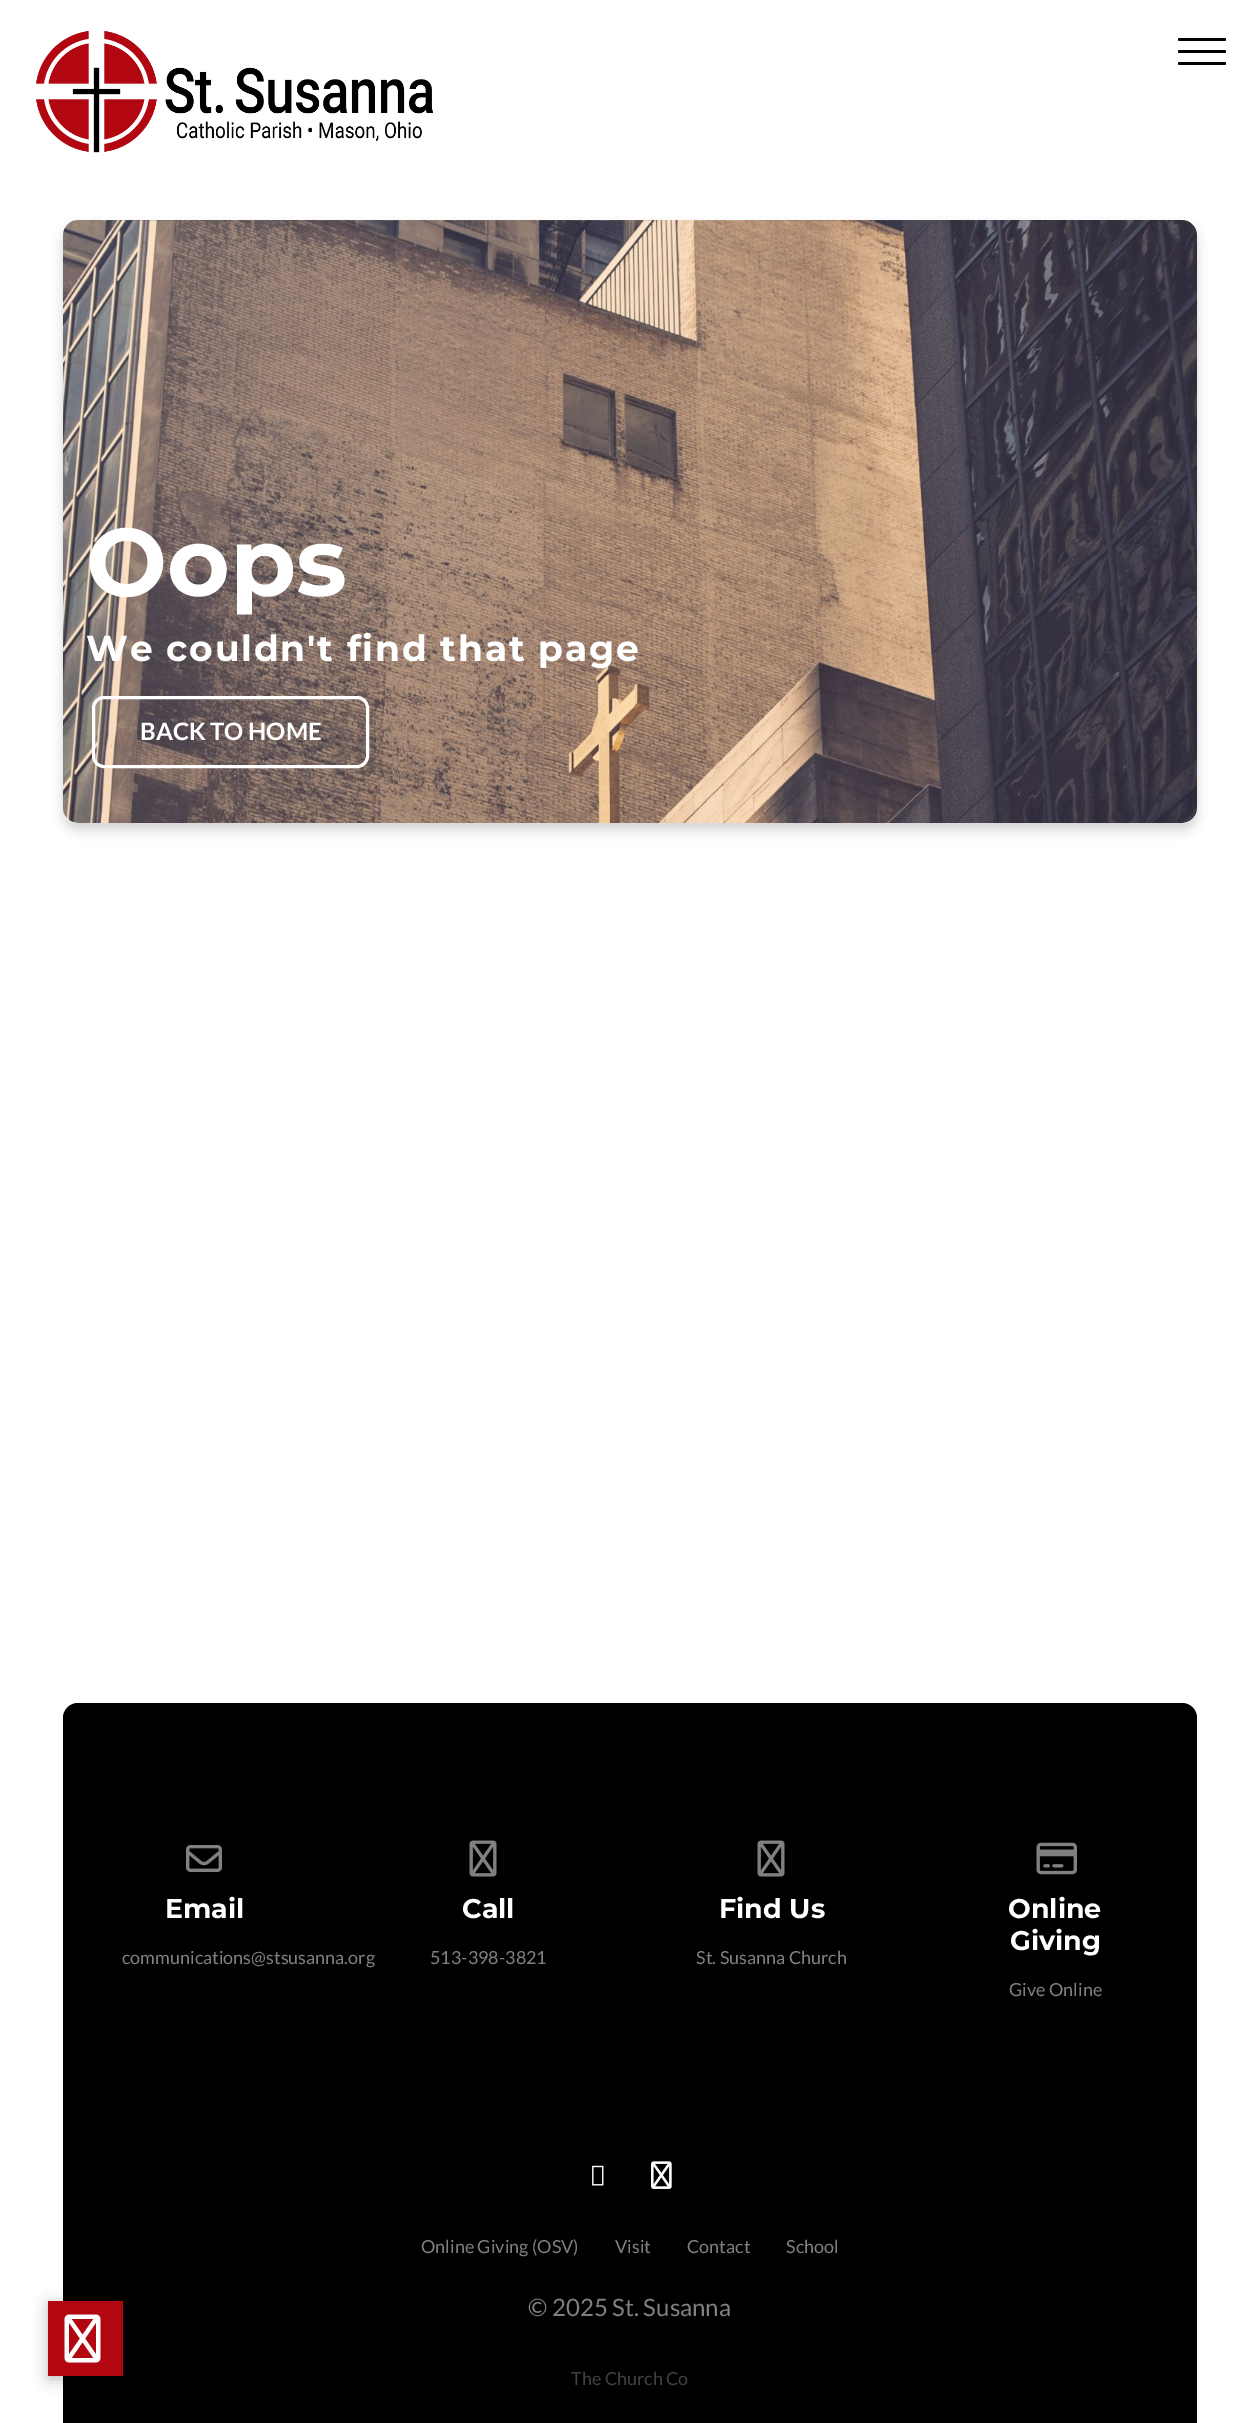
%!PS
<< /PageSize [1259 2423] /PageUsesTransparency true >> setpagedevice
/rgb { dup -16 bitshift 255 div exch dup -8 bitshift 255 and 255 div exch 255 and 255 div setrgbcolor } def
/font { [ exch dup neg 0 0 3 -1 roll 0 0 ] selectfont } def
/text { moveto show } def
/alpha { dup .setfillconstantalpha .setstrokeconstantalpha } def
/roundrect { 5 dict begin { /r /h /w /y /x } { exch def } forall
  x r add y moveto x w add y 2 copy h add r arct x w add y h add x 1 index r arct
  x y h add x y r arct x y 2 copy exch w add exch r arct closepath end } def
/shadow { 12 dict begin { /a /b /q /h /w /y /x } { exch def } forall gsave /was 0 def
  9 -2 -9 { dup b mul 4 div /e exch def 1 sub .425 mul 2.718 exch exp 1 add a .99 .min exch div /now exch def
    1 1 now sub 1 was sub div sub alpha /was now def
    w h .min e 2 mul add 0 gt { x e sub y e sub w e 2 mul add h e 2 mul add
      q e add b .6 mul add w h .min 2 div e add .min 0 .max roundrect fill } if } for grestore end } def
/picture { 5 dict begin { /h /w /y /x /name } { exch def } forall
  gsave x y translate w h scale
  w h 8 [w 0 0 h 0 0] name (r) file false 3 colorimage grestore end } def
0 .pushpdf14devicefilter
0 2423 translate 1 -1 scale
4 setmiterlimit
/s1 { /Montserrat-Bold 96 font 16#FFFFFF rgb } def
/s2 { /Lato-Bold 24 font 16#FFFFFF rgb } def
/s3 { /Montserrat-Bold 27 font 16#FFFFFF rgb } def
/s4 { /Lato-Regular 18 font 16#808080 rgb } def
/s5 { /Lato-Regular 24 font 16#808080 rgb } def
/s6 { /Lato-Regular 18 font 16#404040 rgb } def
16#FFFFFF rgb
0 0 1259 2423 rectfill
(pic1.raw) 36 31 397 122 picture
16#000000 rgb
1178 38 48 3 1.5 roundrect fill
1178 50 48 3 1.5 roundrect fill
1178 62 48 3 1.5 roundrect fill
63 227 1134 603 15 6 0.17 shadow
(pic2.raw) 63 220 1134 603 picture
s1
(Oops) 86 596 text
/Montserrat-Bold 36 font
86 661 moveto 1.8 0 (We couldn't find that page) ashow
3 setlinewidth
93.5 697.5 274 69 10.5 roundrect stroke
s2
(BACK TO HOME) 140 740 text
16#000000 rgb
63 1703 1134 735 15 roundrect fill
48 2304 75 75 0 7.5 0.25 shadow
16#B20710 rgb
48 2301 75 75 rectfill
(pic3.raw) 64 2314 37 49 picture
(pic4.raw) 186 1845 36 27 picture
s3
(Email) 165 1918 text
s4
(communications@stsusanna.org) 122 1964 text
(pic5.raw) 469 1840 28 37 picture
s3
(Call) 462 1918 text
s4
(513-398-3821) 430 1964 text
(pic5.raw) 757 1840 28 37 picture
s3
(Find Us) 719 1918 text
s4
(St. Susanna Church) 696 1964 text
(pic6.raw) 1036 1842 41 33 picture
s3
(Online) 1008 1918 text
(Giving) 1010 1950 text
s4
(Give Online) 1009 1996 text
(pic7.raw) 592 2165 12 21 picture
(pic8.raw) 651 2161 21 28 picture
(Online Giving \(OSV\)) 421 2253 text
(Visit) 615 2253 text
(Contact) 687 2253 text
(School) 786 2253 text
s5
(© 2025 St. Susanna) 528 2316 text
s6
(The Church Co) 571 2385 text
.poppdf14devicefilter showpage
